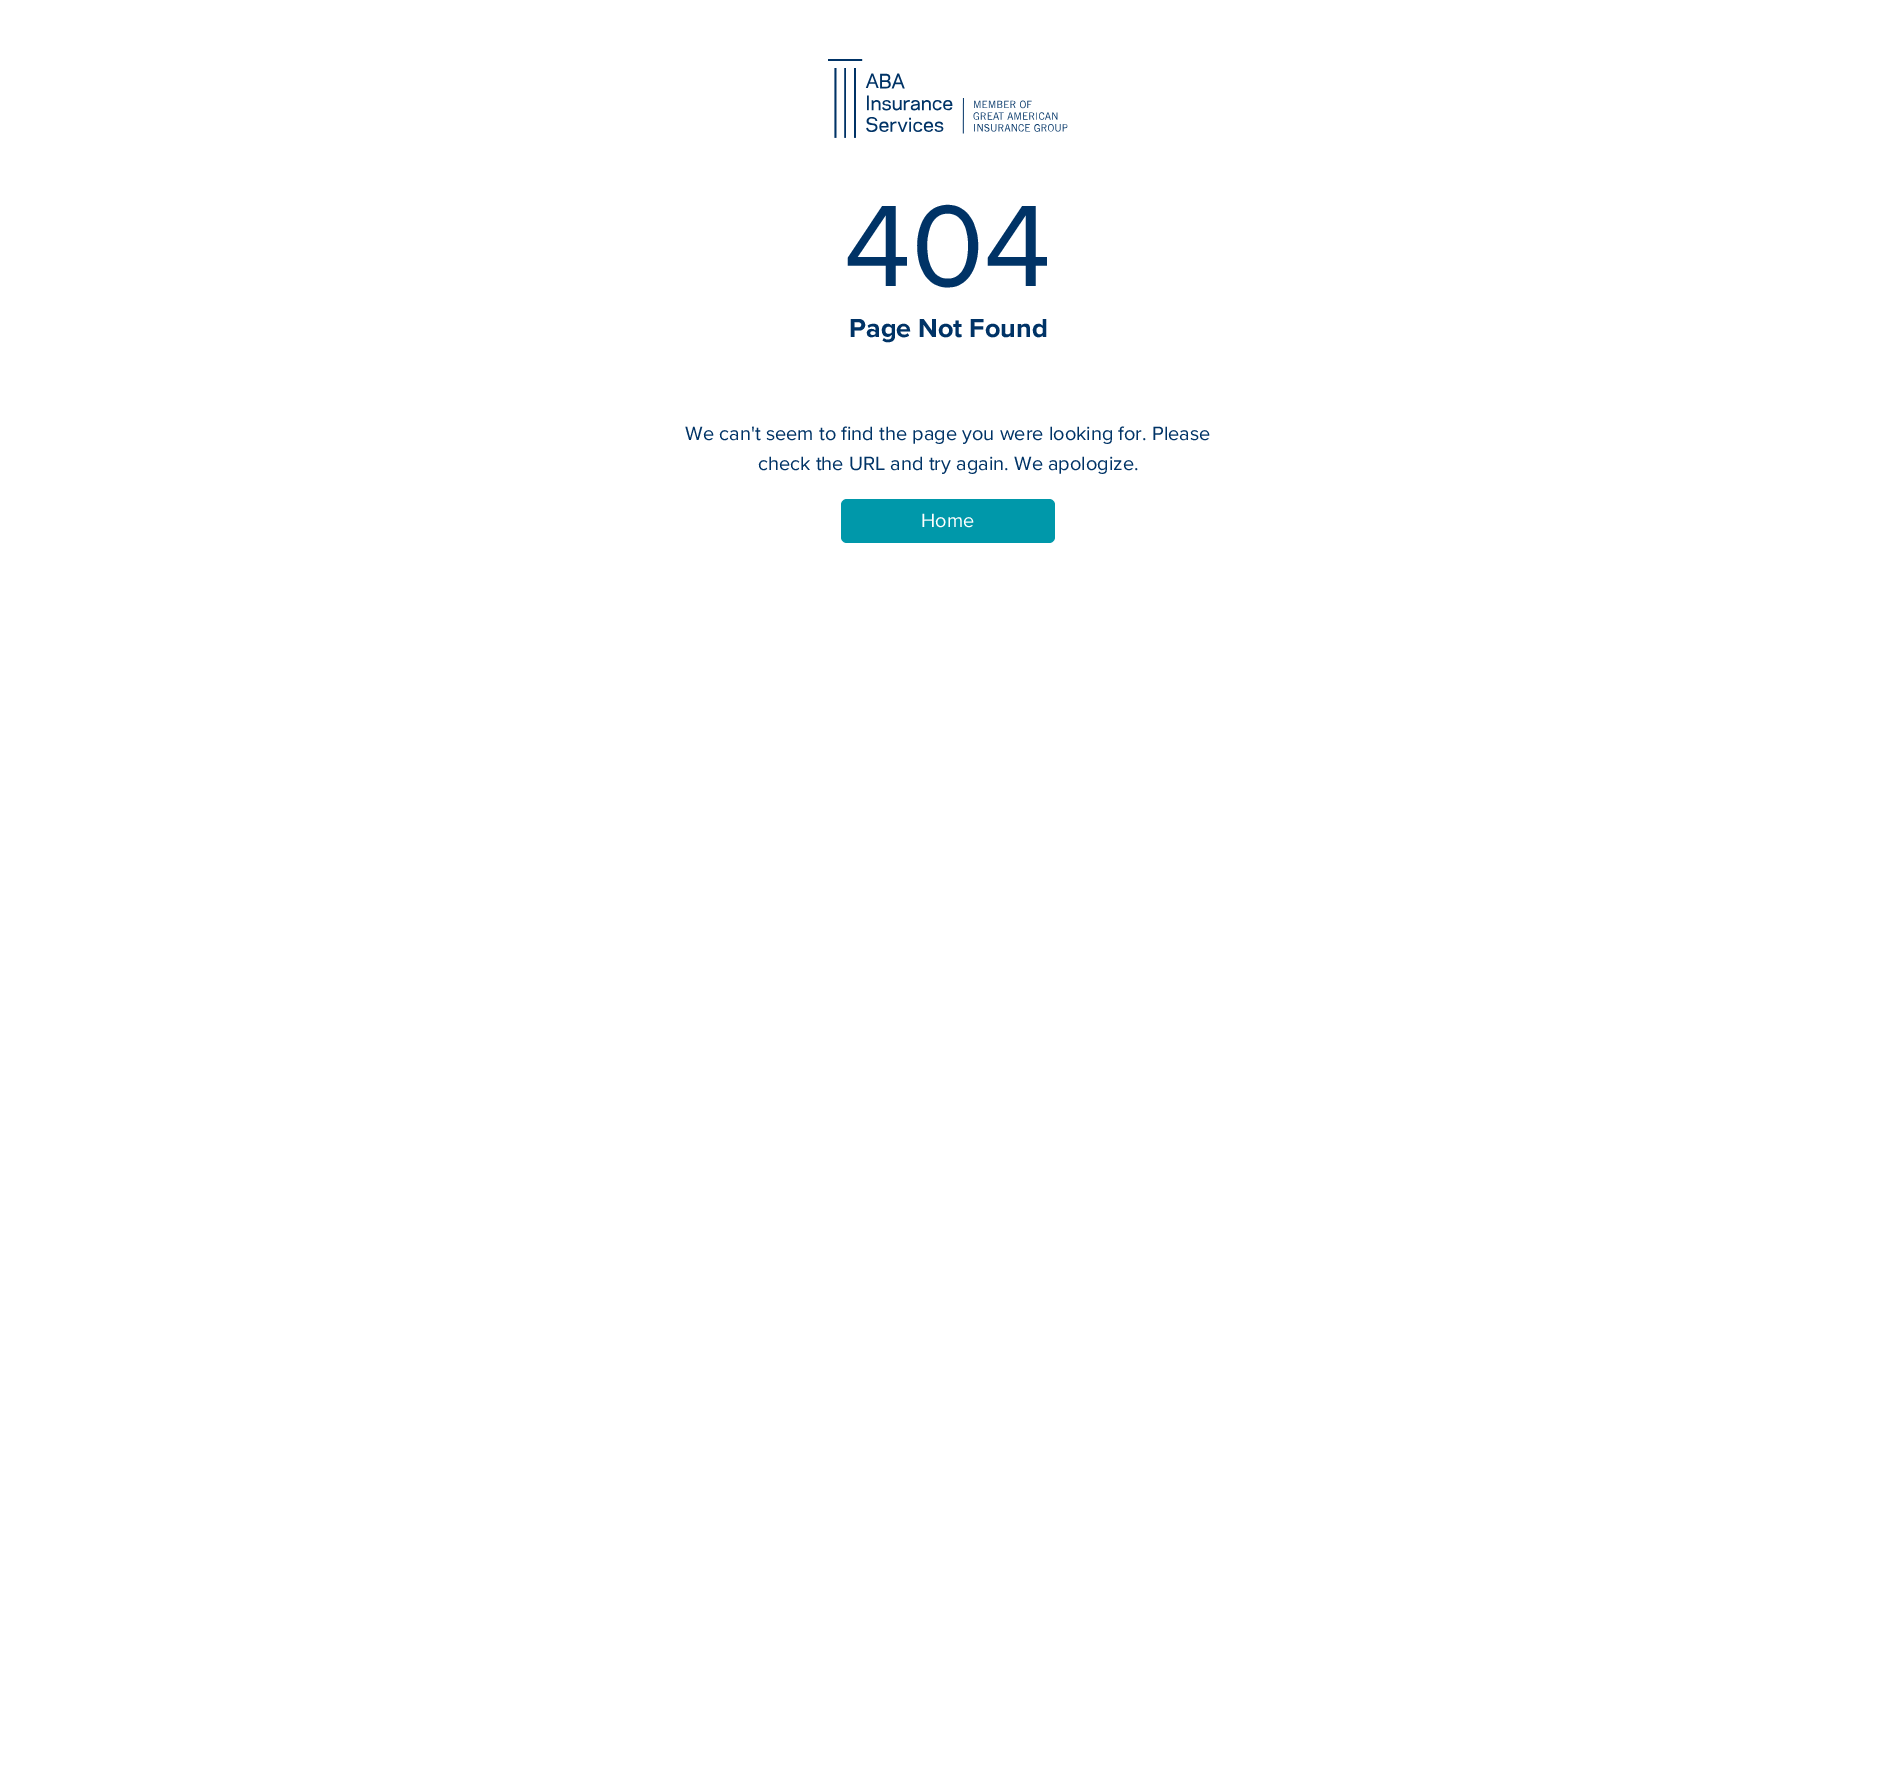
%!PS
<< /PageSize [1896 1768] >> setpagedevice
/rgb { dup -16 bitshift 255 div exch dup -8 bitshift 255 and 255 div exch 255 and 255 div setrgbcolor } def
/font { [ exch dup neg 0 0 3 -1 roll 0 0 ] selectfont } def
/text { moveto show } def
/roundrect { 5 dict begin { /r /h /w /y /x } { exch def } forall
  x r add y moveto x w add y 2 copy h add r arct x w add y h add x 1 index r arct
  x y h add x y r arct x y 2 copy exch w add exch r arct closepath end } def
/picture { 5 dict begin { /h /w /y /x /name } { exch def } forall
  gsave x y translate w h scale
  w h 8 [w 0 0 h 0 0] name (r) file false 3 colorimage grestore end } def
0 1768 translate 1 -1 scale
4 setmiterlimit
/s1 { /ProximaNova-Regular 120 font 16#003366 rgb } def
/s2 { /ProximaNova-Bold 27 font 16#003366 rgb } def
/s3 { /ProximaNova-Regular 20 font 16#003366 rgb } def
/s4 { /ProximaNova-Regular 20 font 16#FFFFFF rgb } def
16#FFFFFF rgb
0 0 1896 1768 rectfill
(pic1.raw) 828 59 240 79 picture
s1
(404) 844 286 text
s2
(Page Not Found) 849 337 text
s3
(We can't seem to find the page you were looking for. Please) 685 440 text
(check the URL and try again. We apologize.) 758 470 text
16#0098AA rgb
841 499 214 44 6 roundrect fill
s4
(Home) 921 527 text
showpage
